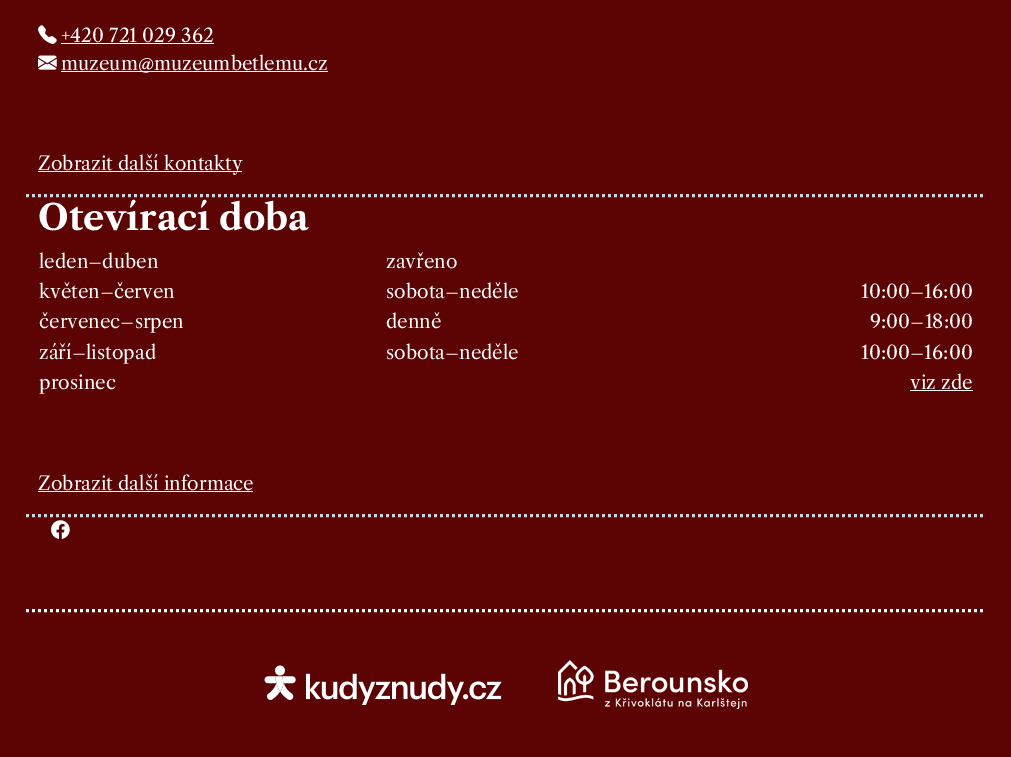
%!PS
<< /PageSize [1011 757] >> setpagedevice
/rgb { dup -16 bitshift 255 div exch dup -8 bitshift 255 and 255 div exch 255 and 255 div setrgbcolor } def
/font { [ exch dup neg 0 0 3 -1 roll 0 0 ] selectfont } def
/text { moveto show } def
/picture { 5 dict begin { /h /w /y /x /name } { exch def } forall
  gsave x y translate w h scale
  w h 8 [w 0 0 h 0 0] name (r) file false 3 colorimage grestore end } def
0 757 translate 1 -1 scale
4 setmiterlimit
/s1 { /LibreCaslonText-Regular 18.75 font 16#FFFFFF rgb } def
/s2 { /LibreCaslonText-Bold 35.25 font 16#FFFFFF rgb } def
16#5C0304 rgb
0 0 1011 757 rectfill
16#FFFFFF rgb
3 setlinewidth
[3 3] 0 setdash
26 610.5 moveto 986 610.5 lineto stroke
16#CED4DA rgb
26 195.5 moveto 986 195.5 lineto stroke
(pic1.raw) 38 25 19 19 picture
s1
(+420 721 029 362) 61 42 text
61 43 153 1 rectfill
(pic2.raw) 38 55 19 15 picture
61 71 267 1 rectfill
(muzeum@muzeumbetlemu.cz) 61 70 text
38 171 204 1 rectfill
(Zobrazit další kontakty) 38 170 text
16#CED4DA rgb
26 515.5 moveto 986 515.5 lineto stroke
s2
(Otevírací doba) 38 230 text
s1
(leden–duben) 39 268 text
(zavřeno) 386 268 text
(květen–červen) 39 298 text
(sobota–neděle) 386 298 text
(10:00–16:00) 861 298 text
(červenec–srpen) 39 328 text
(denně) 386 328 text
(9:00–18:00) 870 328 text
(září–listopad) 39 359 text
(sobota–neděle) 386 359 text
(10:00–16:00) 861 359 text
(prosinec) 39 389 text
(viz zde) 910 389 text
910 390 63 1 rectfill
(Zobrazit další informace) 38 490 text
38 491 215 1 rectfill
(pic3.raw) 51 520 19 19 picture
(pic4.raw) 264 665 238 40 picture
(pic5.raw) 558 660 190 49 picture
showpage
